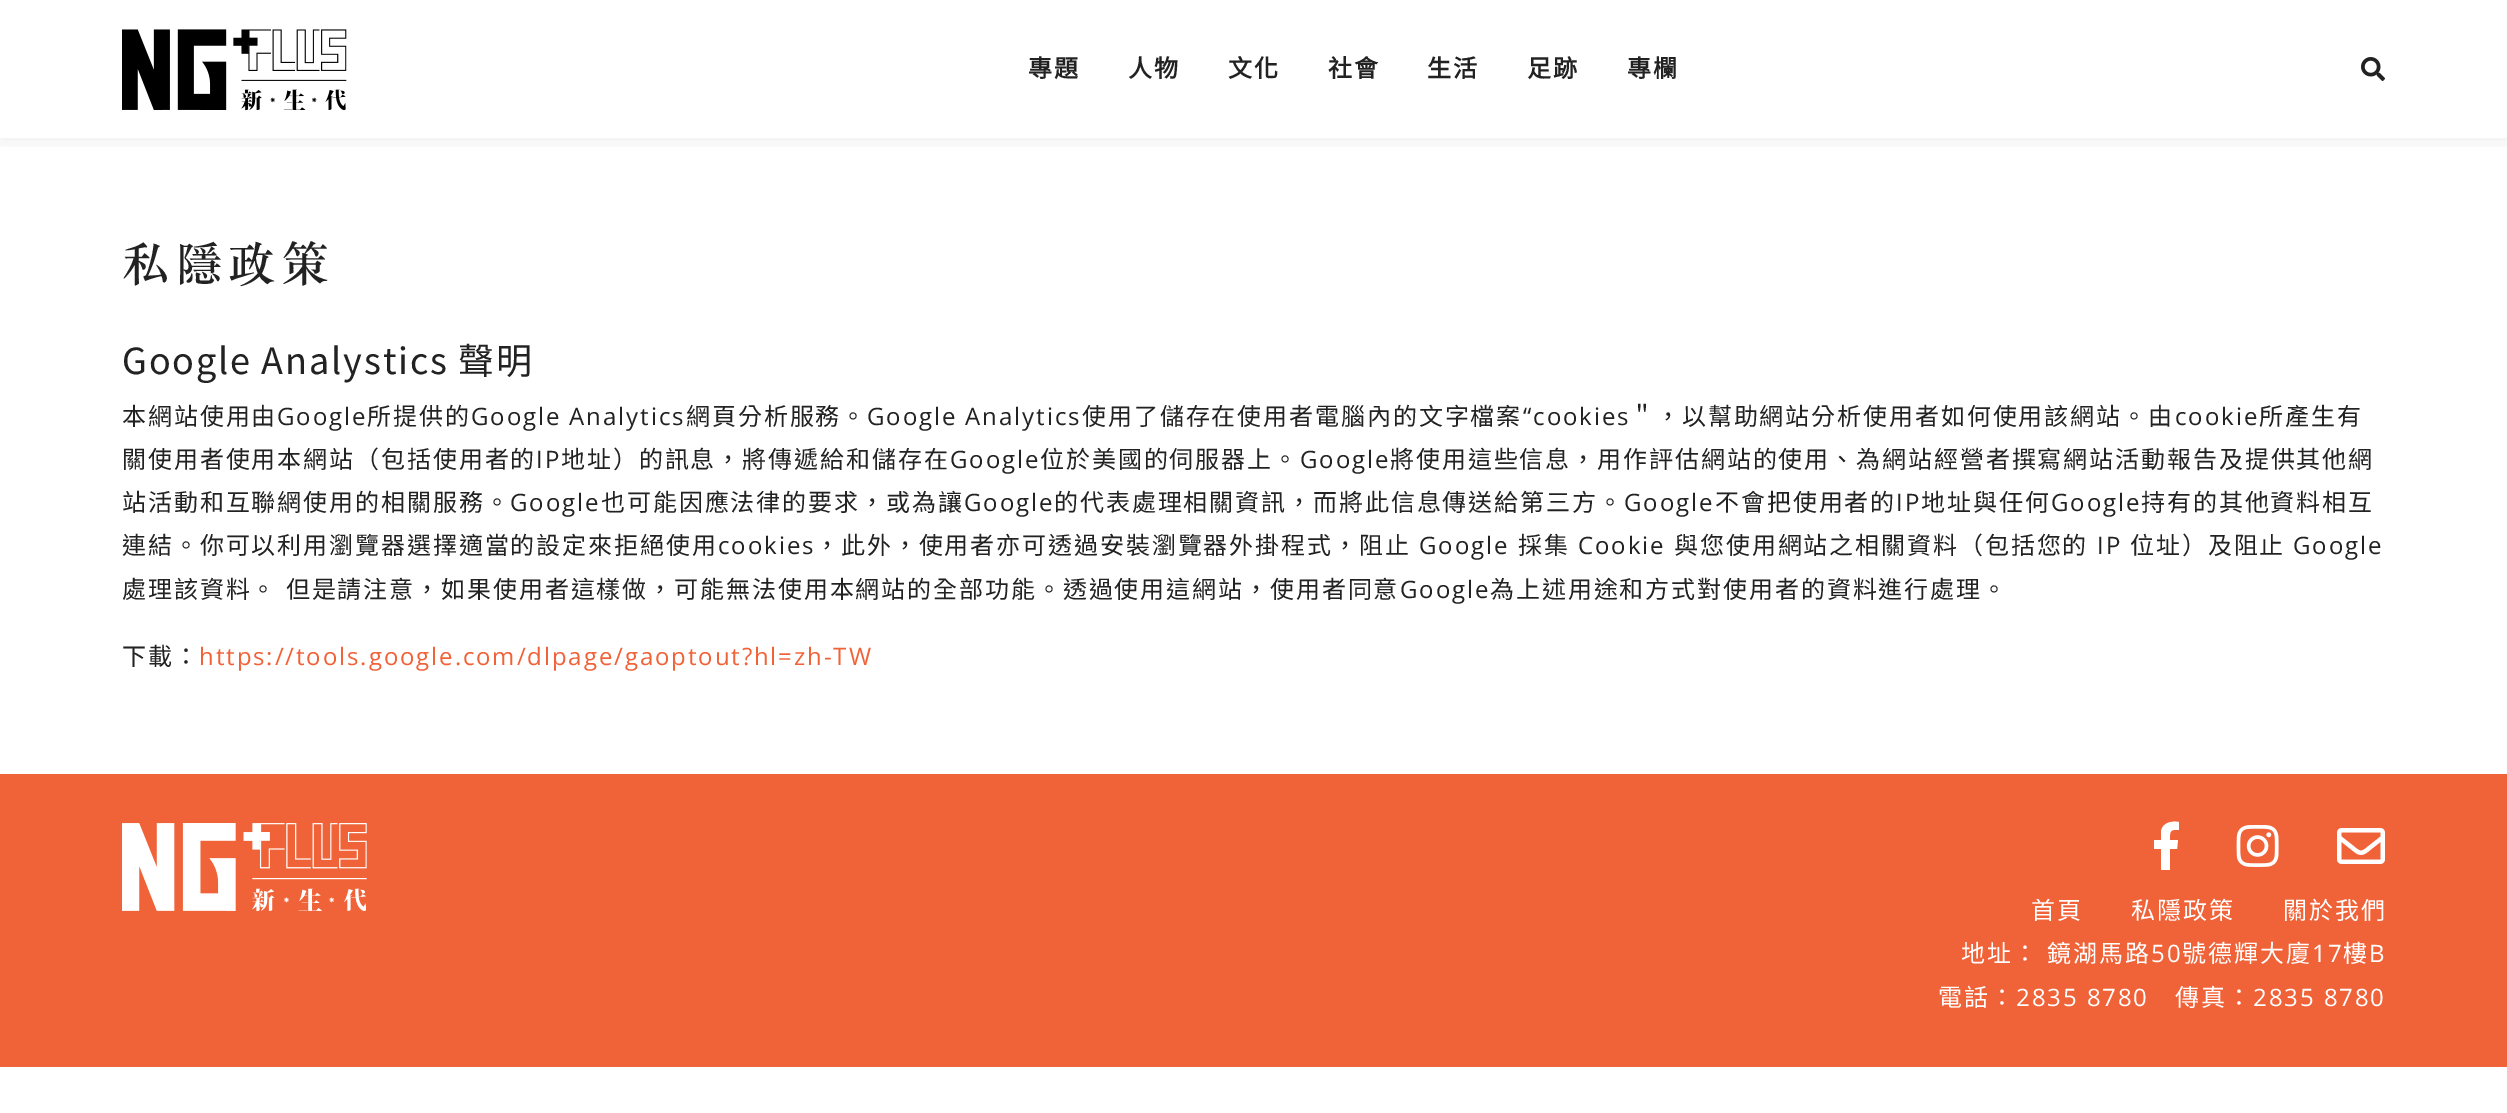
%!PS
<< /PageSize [2507 1113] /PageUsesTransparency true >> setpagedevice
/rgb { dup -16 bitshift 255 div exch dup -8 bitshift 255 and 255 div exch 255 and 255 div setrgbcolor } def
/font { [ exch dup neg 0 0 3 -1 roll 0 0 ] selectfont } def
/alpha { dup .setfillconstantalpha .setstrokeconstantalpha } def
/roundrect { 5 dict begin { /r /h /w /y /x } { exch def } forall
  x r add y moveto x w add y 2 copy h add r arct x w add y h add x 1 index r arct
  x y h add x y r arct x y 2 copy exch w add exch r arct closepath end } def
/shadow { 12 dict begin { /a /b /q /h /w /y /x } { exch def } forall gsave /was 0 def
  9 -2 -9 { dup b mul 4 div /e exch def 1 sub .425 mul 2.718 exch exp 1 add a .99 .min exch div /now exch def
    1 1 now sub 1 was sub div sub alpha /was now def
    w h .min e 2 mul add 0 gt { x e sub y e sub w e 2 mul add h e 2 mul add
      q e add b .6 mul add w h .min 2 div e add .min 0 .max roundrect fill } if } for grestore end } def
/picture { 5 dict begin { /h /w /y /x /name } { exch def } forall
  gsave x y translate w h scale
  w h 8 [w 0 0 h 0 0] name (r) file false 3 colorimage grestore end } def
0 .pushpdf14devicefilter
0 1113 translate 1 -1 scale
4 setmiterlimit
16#FFFFFF rgb
0 0 2507 1113 rectfill
gsave
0 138 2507 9 rectclip
16#222222 rgb
0 0 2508 138 0 11 0.1 shadow
grestore
(pic1.raw) 122 29 225 82 picture
/NotoSansCJKTC-Bold 24 font
16#222222 rgb
1028 77 moveto 1.9 0 (專題) ashow
1128 77 moveto 1.9 0 (人物) ashow
1228 77 moveto 1.9 0 (文化) ashow
1328 77 moveto 1.9 0 (社會) ashow
1427 77 moveto 1.9 0 (生活) ashow
1527 77 moveto 1.9 0 (足跡) ashow
1627 77 moveto 1.9 0 (專欄) ashow
(pic2.raw) 2361 57 24 24 picture
/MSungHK-Medium 48 font
122 282 moveto 5 0 (私隱政策) ashow
/NotoSansCJKTC-Regular 36 font
122 374 moveto -1 0 32 1.9 0 (Google Analystics 聲明) awidthshow
/NotoSansCJKTC-Regular 24 font
122 425 moveto 1.9 0 (本網站使用由) ashow
/OpenSans-Regular 24 font
277 425 moveto 1.9 0 (Google) ashow
/NotoSansCJKTC-Regular 24 font
367 425 moveto 1.9 0 (所提供的) ashow
/OpenSans-Regular 24 font
471 425 moveto 1.9 0 (Google Analytics) ashow
/NotoSansCJKTC-Regular 24 font
686 425 moveto 1.9 0 (網頁分析服務。) ashow
/OpenSans-Regular 24 font
867 425 moveto 1.9 0 (Google Analytics) ashow
/NotoSansCJKTC-Regular 24 font
1082 425 moveto 1.9 0 (使用了儲存在使用者電腦內的文字檔案) ashow
/OpenSans-Regular 24 font
1523 425 moveto 1.9 0 (“cookies) ashow
/NotoSansCJKTC-Regular 24 font
1630 425 moveto 1.9 0 (＂，以幫助網站分析使用者如何使用該網站。由) ashow
/OpenSans-Regular 24 font
2175 425 moveto 1.9 0 (cookie) ashow
/NotoSansCJKTC-Regular 24 font
2259 425 moveto 1.9 0 (所產生有) ashow
122 468 moveto 1.9 0 (關使用者使用本網站（包括使用者的) ashow
/OpenSans-Regular 24 font
536 468 moveto 1.9 0 (IP) ashow
/NotoSansCJKTC-Regular 24 font
561 468 moveto 1.9 0 (地址）的訊息，將傳遞給和儲存在) ashow
/OpenSans-Regular 24 font
950 468 moveto 1.9 0 (Google) ashow
/NotoSansCJKTC-Regular 24 font
1040 468 moveto 1.9 0 (位於美國的伺服器上。) ashow
/OpenSans-Regular 24 font
1300 468 moveto 1.9 0 (Google) ashow
/NotoSansCJKTC-Regular 24 font
1390 468 moveto 1.9 0 (將使用這些信息，用作評估網站的使用、為網站經營者撰寫網站活動報告及提供其他網) ashow
122 511 moveto 1.9 0 (站活動和互聯網使用的相關服務。) ashow
/OpenSans-Regular 24 font
510 511 moveto 1.9 0 (Google) ashow
/NotoSansCJKTC-Regular 24 font
601 511 moveto 1.9 0 (也可能因應法律的要求，或為讓) ashow
/OpenSans-Regular 24 font
964 511 moveto 1.9 0 (Google) ashow
/NotoSansCJKTC-Regular 24 font
1054 511 moveto 1.9 0 (的代表處理相關資訊，而將此信息傳送給第三方。) ashow
/OpenSans-Regular 24 font
1624 511 moveto 1.9 0 (Google) ashow
/NotoSansCJKTC-Regular 24 font
1715 511 moveto 1.9 0 (不會把使用者的) ashow
/OpenSans-Regular 24 font
1896 511 moveto 1.9 0 (IP) ashow
/NotoSansCJKTC-Regular 24 font
1921 511 moveto 1.9 0 (地址與任何) ashow
/OpenSans-Regular 24 font
2051 511 moveto 1.9 0 (Google) ashow
/NotoSansCJKTC-Regular 24 font
2141 511 moveto 1.9 0 (持有的其他資料相互) ashow
122 554 moveto 1.9 0 (連結。你可以利用瀏覽器選擇適當的設定來拒絕使用) ashow
/OpenSans-Regular 24 font
718 554 moveto 1.9 0 (cookies) ashow
/NotoSansCJKTC-Regular 24 font
815 554 moveto 1.9 0 (，此外，使用者亦可透過安裝瀏覽器外掛程式，阻止) ashow
/OpenSans-Regular 24 font
1419 554 moveto 1.9 0 (Google) ashow
/NotoSansCJKTC-Regular 24 font
1518 554 moveto 1.9 0 (採集) ashow
/OpenSans-Regular 24 font
1578 554 moveto 1.9 0 (Cookie) ashow
/NotoSansCJKTC-Regular 24 font
1674 554 moveto 1.9 0 (與您使用網站之相關資料（包括您的) ashow
/OpenSans-Regular 24 font
2097 554 moveto 1.9 0 (IP) ashow
/NotoSansCJKTC-Regular 24 font
2130 554 moveto 1.9 0 (位址）及阻止) ashow
/OpenSans-Regular 24 font
2293 554 moveto 1.9 0 (Google) ashow
/NotoSansCJKTC-Regular 24 font
122 598 moveto 1 0 32 1.9 0 (處理該資料。 但是請注意，如果使用者這樣做，可能無法使用本網站的全部功能。透過使用這網站，使用者同意) awidthshow
/OpenSans-Regular 24 font
1400 598 moveto 1.9 0 (Google) ashow
/NotoSansCJKTC-Regular 24 font
1490 598 moveto 1.9 0 (為上述用途和方式對使用者的資料進行處理。) ashow
122 665 moveto 1.9 0 (下載：) ashow
/OpenSans-Regular 24 font
16#F06237 rgb
199 665 moveto 1.9 0 (https://tools.google.com/dlpage/gaoptout?hl=zh-TW) ashow
0 774 2507 293 rectfill
(pic3.raw) 122 823 245 89 picture
16#FFFFFF rgb
2174 830 moveto 2169 830 2170 836 2170 840 curveto 2178 840 lineto 2177 849 lineto 2170 849 lineto 2170 870 lineto 2161 870 lineto 2161 849 lineto 2154 849 lineto 2154 840 lineto 2161 840 lineto 2161 831 lineto 2163 822 2172 821 2179 822 curveto 2179 830 lineto closepath fill
(pic4.raw) 2236 825 43 42 picture
(pic5.raw) 2337 828 48 36 picture
/NotoSansCJKTC-Regular 24 font
2031 919 moveto 1.9 0 (首頁) ashow
2131 919 moveto 1.9 0 (私隱政策) ashow
2283 919 moveto 1.9 0 (關於我們) ashow
1961 962 moveto 1 0 32 1.9 0 (地址： 鏡湖馬路) awidthshow
/OpenSans-Regular 24 font
2151 962 moveto 1.9 0 (50) ashow
/NotoSansCJKTC-Regular 24 font
2182 962 moveto 1.9 0 (號德輝大廈) ashow
/OpenSans-Regular 24 font
2312 962 moveto 1.9 0 (17) ashow
/NotoSansCJKTC-Regular 24 font
2343 962 moveto 1.9 0 (樓) ashow
/OpenSans-Regular 24 font
2369 962 moveto 1.9 0 (B) ashow
/NotoSansCJKTC-Regular 24 font
1938 1006 moveto 1.9 0 (電話：) ashow
/OpenSans-Regular 24 font
2016 1006 moveto 1.9 0 (2835 8780) ashow
/NotoSansCJKTC-Regular 24 font
2175 1006 moveto 1.9 0 (傳真：) ashow
/OpenSans-Regular 24 font
2253 1006 moveto 1.9 0 (2835 8780) ashow
.poppdf14devicefilter showpage
